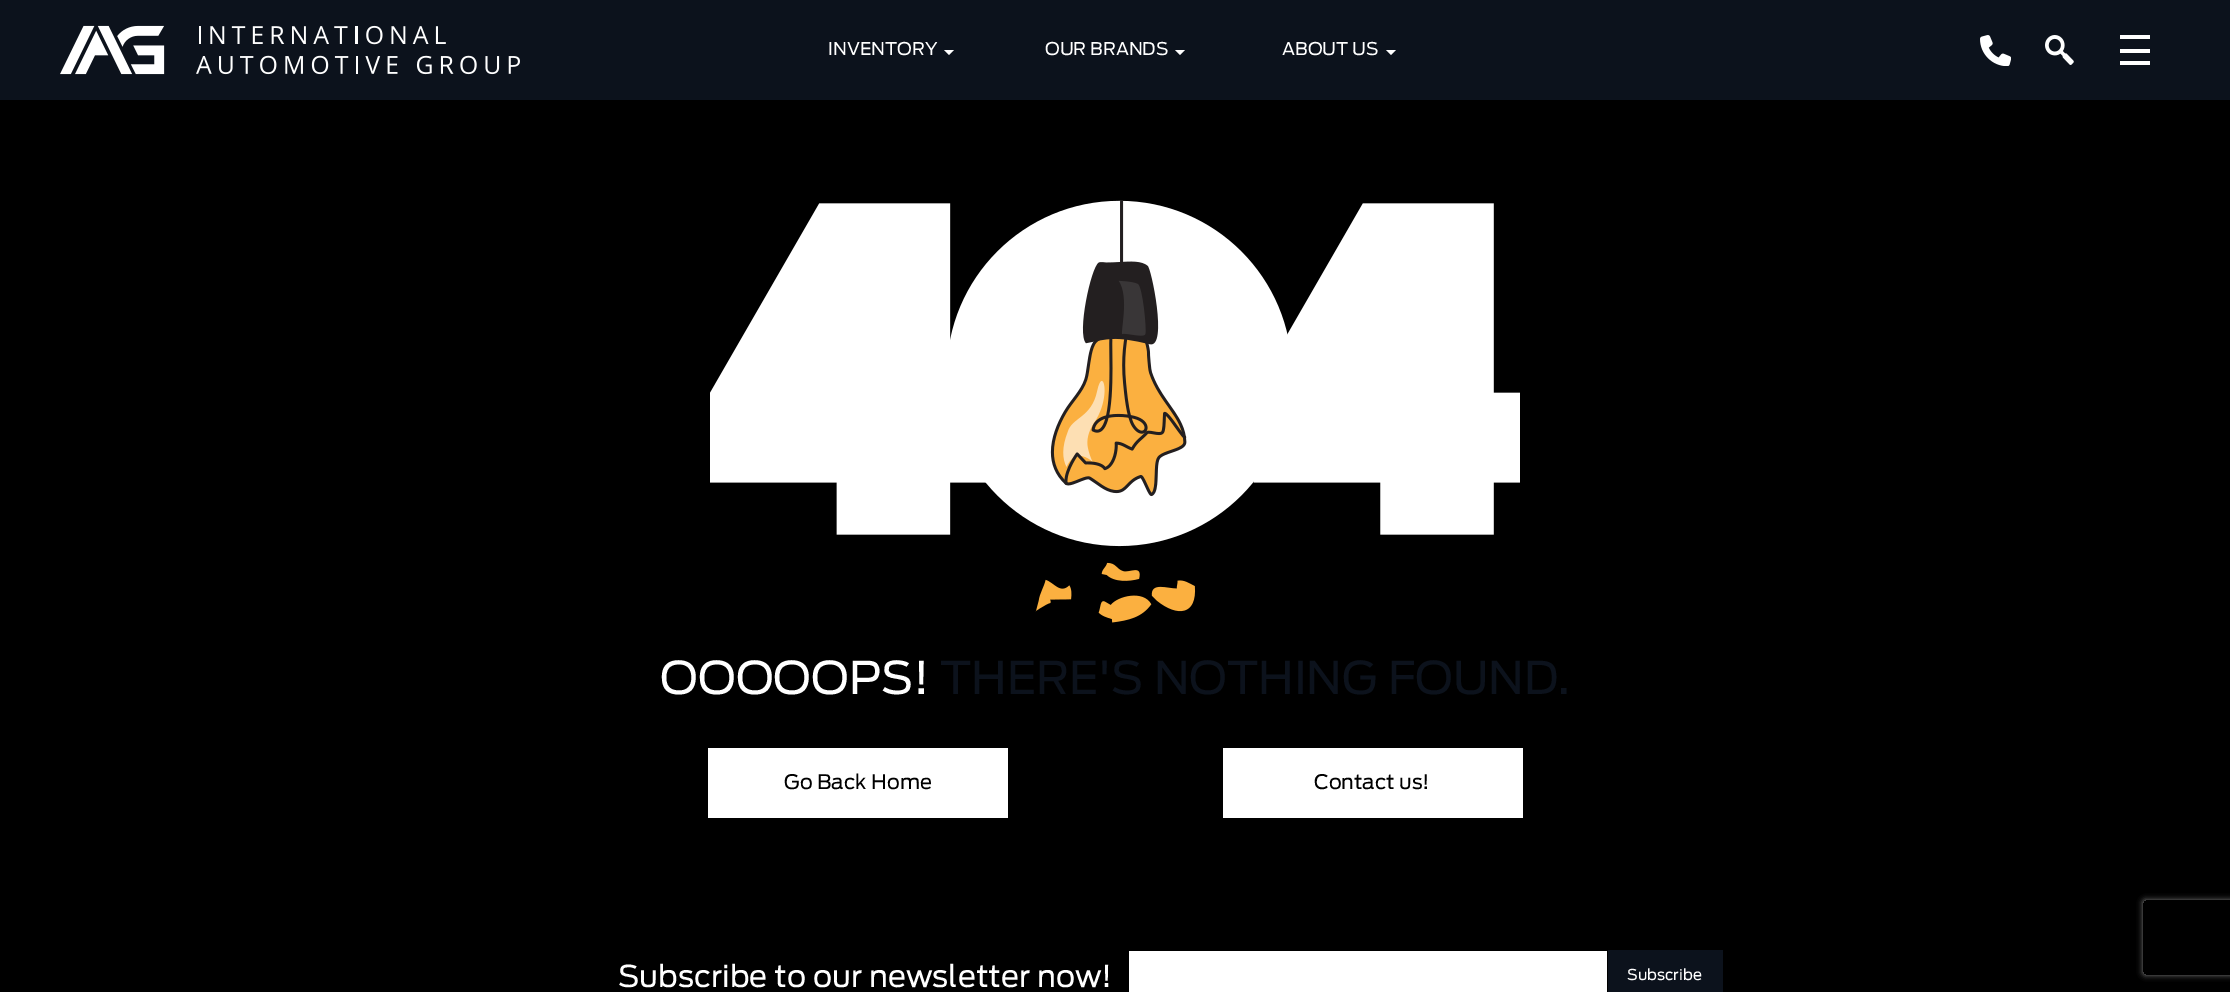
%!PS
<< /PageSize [2230 992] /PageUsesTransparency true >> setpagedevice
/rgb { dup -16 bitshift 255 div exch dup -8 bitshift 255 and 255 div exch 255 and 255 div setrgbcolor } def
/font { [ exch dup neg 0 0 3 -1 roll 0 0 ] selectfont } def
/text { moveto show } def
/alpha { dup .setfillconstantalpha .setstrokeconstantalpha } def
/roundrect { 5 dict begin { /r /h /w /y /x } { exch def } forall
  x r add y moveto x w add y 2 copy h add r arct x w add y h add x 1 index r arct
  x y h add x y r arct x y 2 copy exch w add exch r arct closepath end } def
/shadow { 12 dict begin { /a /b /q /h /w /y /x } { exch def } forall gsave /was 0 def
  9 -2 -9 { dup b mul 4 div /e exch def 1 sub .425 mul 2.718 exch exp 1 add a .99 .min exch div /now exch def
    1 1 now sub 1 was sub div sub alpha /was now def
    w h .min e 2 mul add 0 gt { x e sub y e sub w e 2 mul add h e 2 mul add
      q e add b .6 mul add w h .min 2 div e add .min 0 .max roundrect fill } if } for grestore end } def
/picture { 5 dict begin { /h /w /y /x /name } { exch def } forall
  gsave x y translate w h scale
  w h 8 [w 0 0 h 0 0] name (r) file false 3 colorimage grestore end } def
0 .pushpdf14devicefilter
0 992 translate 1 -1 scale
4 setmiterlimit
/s1 { /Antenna-Regular 17.5 font 16#FFFFFF rgb } def
/s2 { /Antenna-Regular 45 font 16#FFFFFF rgb } def
/s3 { /Antenna-Regular 45 font 16#0C121C rgb } def
/s4 { /Antenna-Regular 20 font 16#000000 rgb } def
/s5 { /Antenna-Regular 30 font 16#FFFFFF rgb } def
/s6 { /Antenna-Regular 15 font 16#FFFFFF rgb } def
16#0C121C rgb
0 0 2230 992 rectfill
(pic1.raw) 60 25 460 50 picture
s1
(INVENTORY) 828 55 text
944 50 moveto 954 50 lineto 949 55 lineto closepath fill
(OUR BRANDS) 1045 55 text
1175 50 moveto 1185 50 lineto 1180 55 lineto closepath fill
(ABOUT US) 1282 55 text
1386 50 moveto 1396 50 lineto 1391 55 lineto closepath fill
(pic2.raw) 1980 35 31 31 picture
(pic3.raw) 2045 35 29 30 picture
2120 35 30 4 rectfill
2120 49 30 4 rectfill
2120 61 30 4 rectfill
16#000000 rgb
0 100 2230 892 rectfill
(pic4.raw) 710 200 810 423 picture
s2
(OOOOOPS!) 660 694 text
s3
(THERE'S NOTHING FOUND.) 940 694 text
16#FFFFFF rgb
708 748 300 70 rectfill
s4
(Go Back Home) 784 789 text
16#FFFFFF rgb
1223 748 300 70 rectfill
s4
(Contact us!) 1314 789 text
s5
(Subscribe to our newsletter now!) 618 987 text
1129 951 478 41 rectfill
16#0C121C rgb
1608 950 115 42 rectfill
s6
(Subscribe) 1627 980 text
gsave
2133 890 moveto 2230 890 lineto 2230 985 lineto 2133 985 lineto closepath 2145.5 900 moveto 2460.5 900 lineto 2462 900 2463 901 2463 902.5 curveto 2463 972.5 lineto 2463 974 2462 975 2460.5 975 curveto 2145.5 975 lineto 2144 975 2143 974 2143 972.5 curveto 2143 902.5 lineto 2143 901 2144 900 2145.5 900 curveto closepath eoclip newpath
16#808080 rgb
2143 900 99 75 2.5 3 1 shadow
grestore
.poppdf14devicefilter showpage
